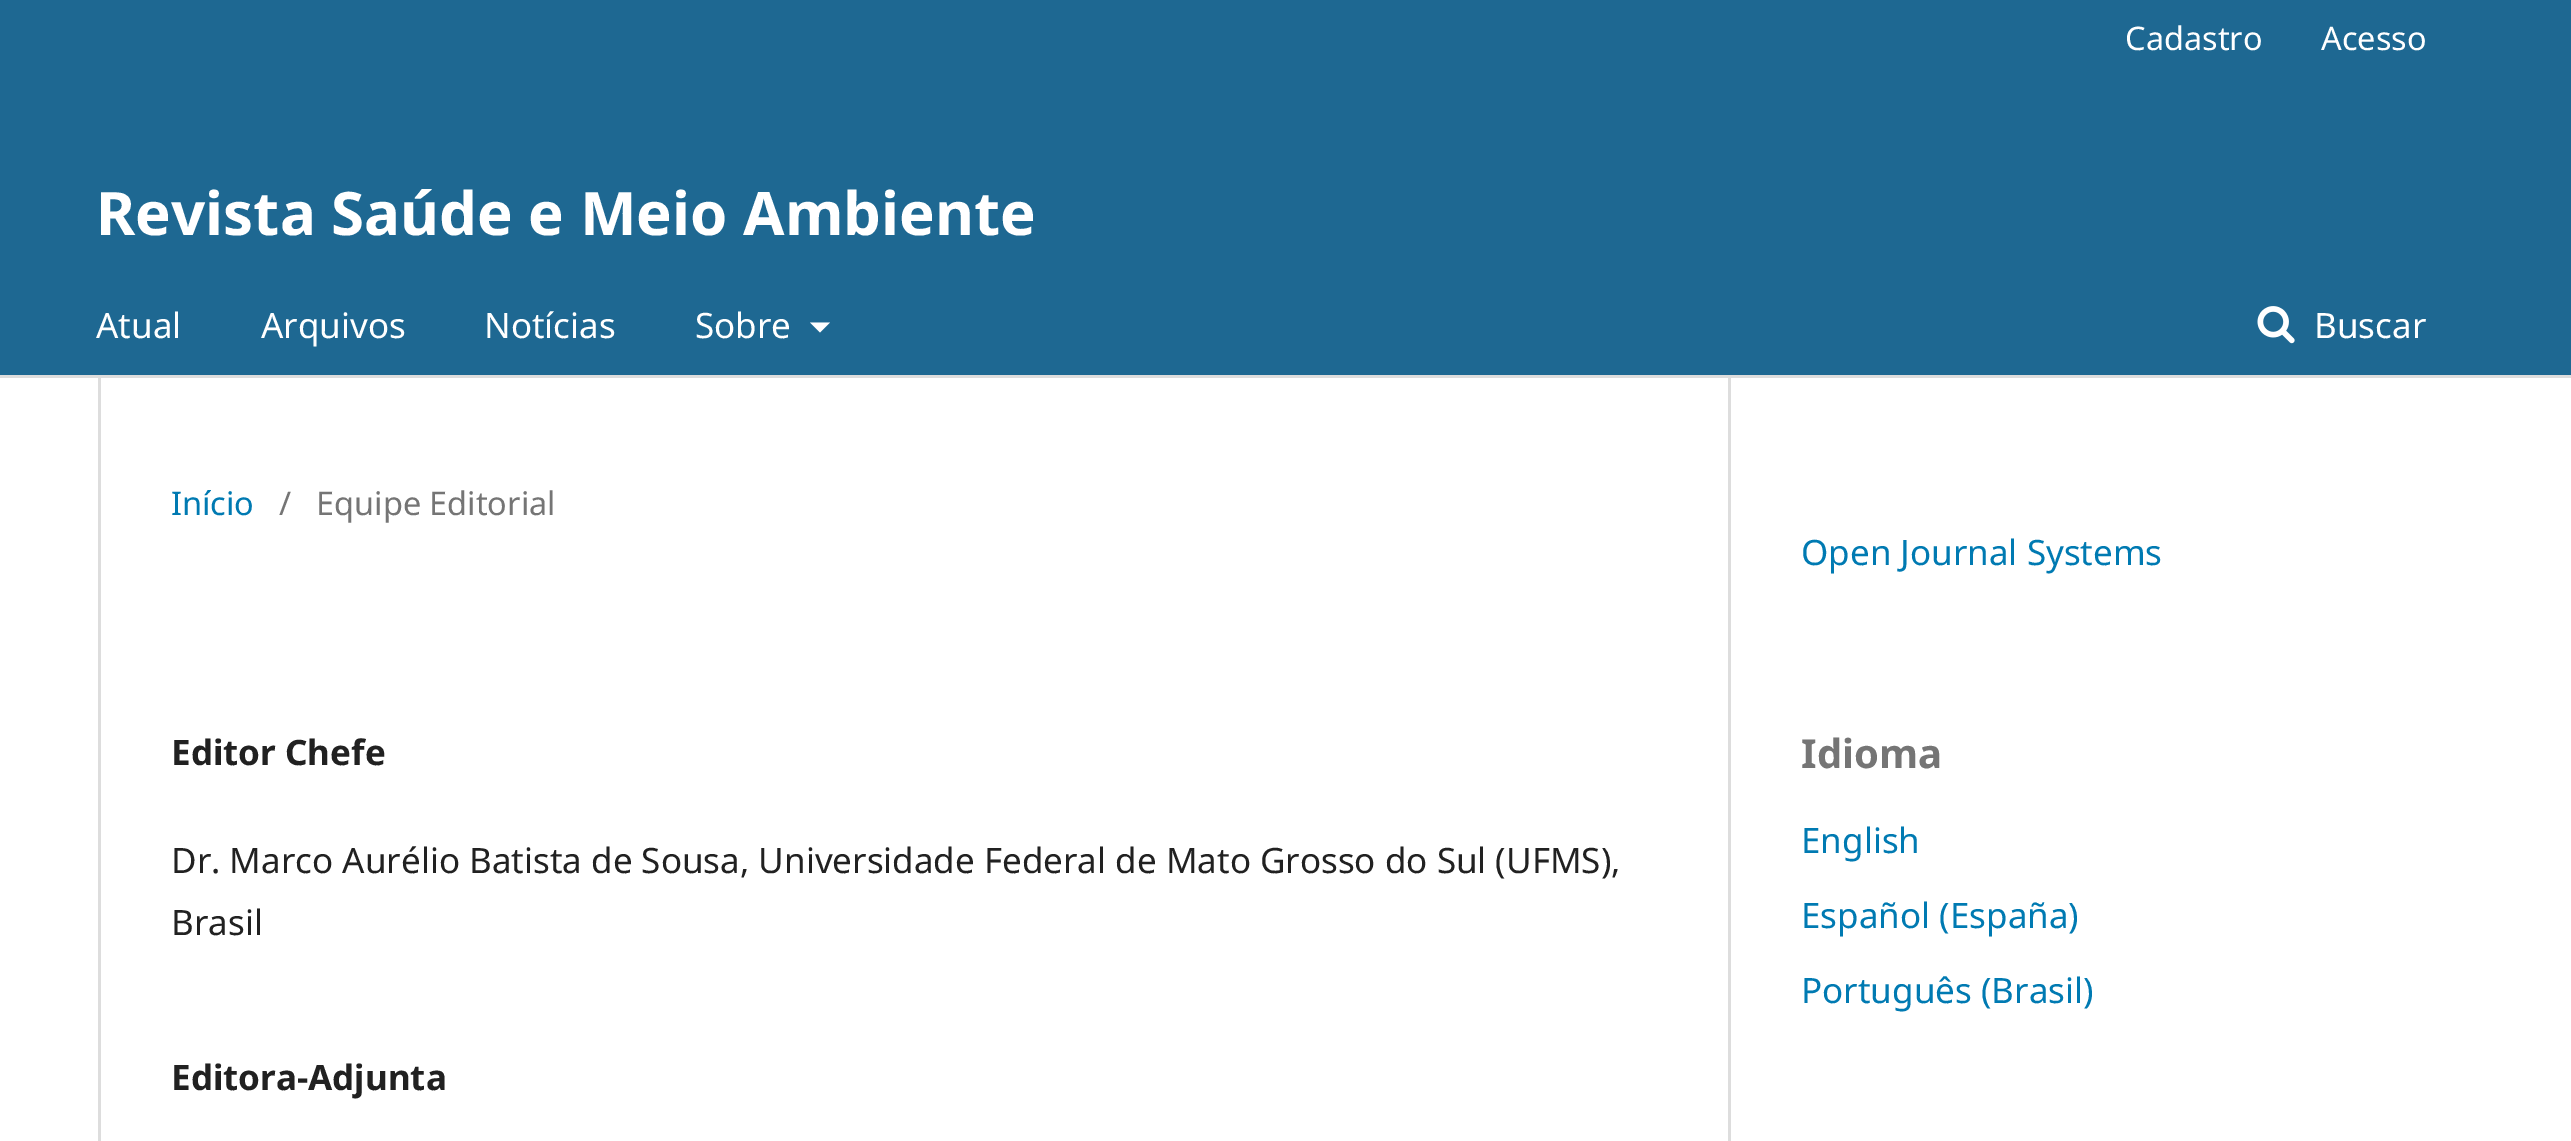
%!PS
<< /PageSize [2571 1141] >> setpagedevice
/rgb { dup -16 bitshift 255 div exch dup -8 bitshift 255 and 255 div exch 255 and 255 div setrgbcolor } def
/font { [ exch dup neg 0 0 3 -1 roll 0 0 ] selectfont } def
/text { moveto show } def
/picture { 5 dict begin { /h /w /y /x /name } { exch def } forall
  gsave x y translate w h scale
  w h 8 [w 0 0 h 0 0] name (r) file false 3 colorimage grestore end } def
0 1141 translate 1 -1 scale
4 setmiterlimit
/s1 { /NotoSans-Regular 32.5 font 16#FFFFFF rgb } def
/s2 { /NotoSans-Bold 60 font 16#FFFFFF rgb } def
/s3 { /NotoSans-Regular 35 font 16#FFFFFF rgb } def
/s4 { /NotoSans-Regular 32.5 font 16#007AB2 rgb } def
/s5 { /NotoSans-Regular 32.5 font 16#757575 rgb } def
/s6 { /NotoSans-Bold 35 font 16#212121 rgb } def
/s7 { /NotoSans-Regular 35 font 16#212121 rgb } def
/s8 { /NotoSans-Regular 35 font 16#007AB2 rgb } def
/s9 { /NotoSans-Bold 40 font 16#757575 rgb } def
16#FFFFFF rgb
0 0 2571 1141 rectfill
16#1E6892 rgb
0 0 2571 375 rectfill
16#DDDDDD rgb
0 375 2571 3 rectfill
s1
(Cadastro) 2125 50 text
(Acesso) 2321 50 text
s2
(Revista Saúde e Meio Ambiente) 96 235 text
s3
(Atual) 96 338 text
(Arquivos) 261 338 text
(Notícias) 484 338 text
(Sobre) 695 338 text
810 322.5 moveto 830 322.5 lineto 820 332.5 lineto closepath fill
(pic1.raw) 2257 306 38 38 picture
(Buscar) 2314 338 text
16#DDDDDD rgb
98 378 3 763 rectfill
s4
(Início) 171 515 text
s5
(/) 279 515 text
(Equipe Editorial) 316 515 text
s6
(Editor Chefe) 171 765 text
s7
(Dr. Marco Aurélio Batista de Sousa, Universidade Federal de Mato Grosso do Sul \(UFMS\),) 171 873 text
(Brasil) 171 935 text
s6
(Editora-Adjunta) 171 1090 text
16#DDDDDD rgb
1728 378 3 763 rectfill
s8
(Open Journal Systems) 1801 565 text
s9
(Idioma) 1801 768 text
s8
(English) 1801 853 text
(Español \(España\)) 1801 928 text
(Português \(Brasil\)) 1801 1003 text
showpage
